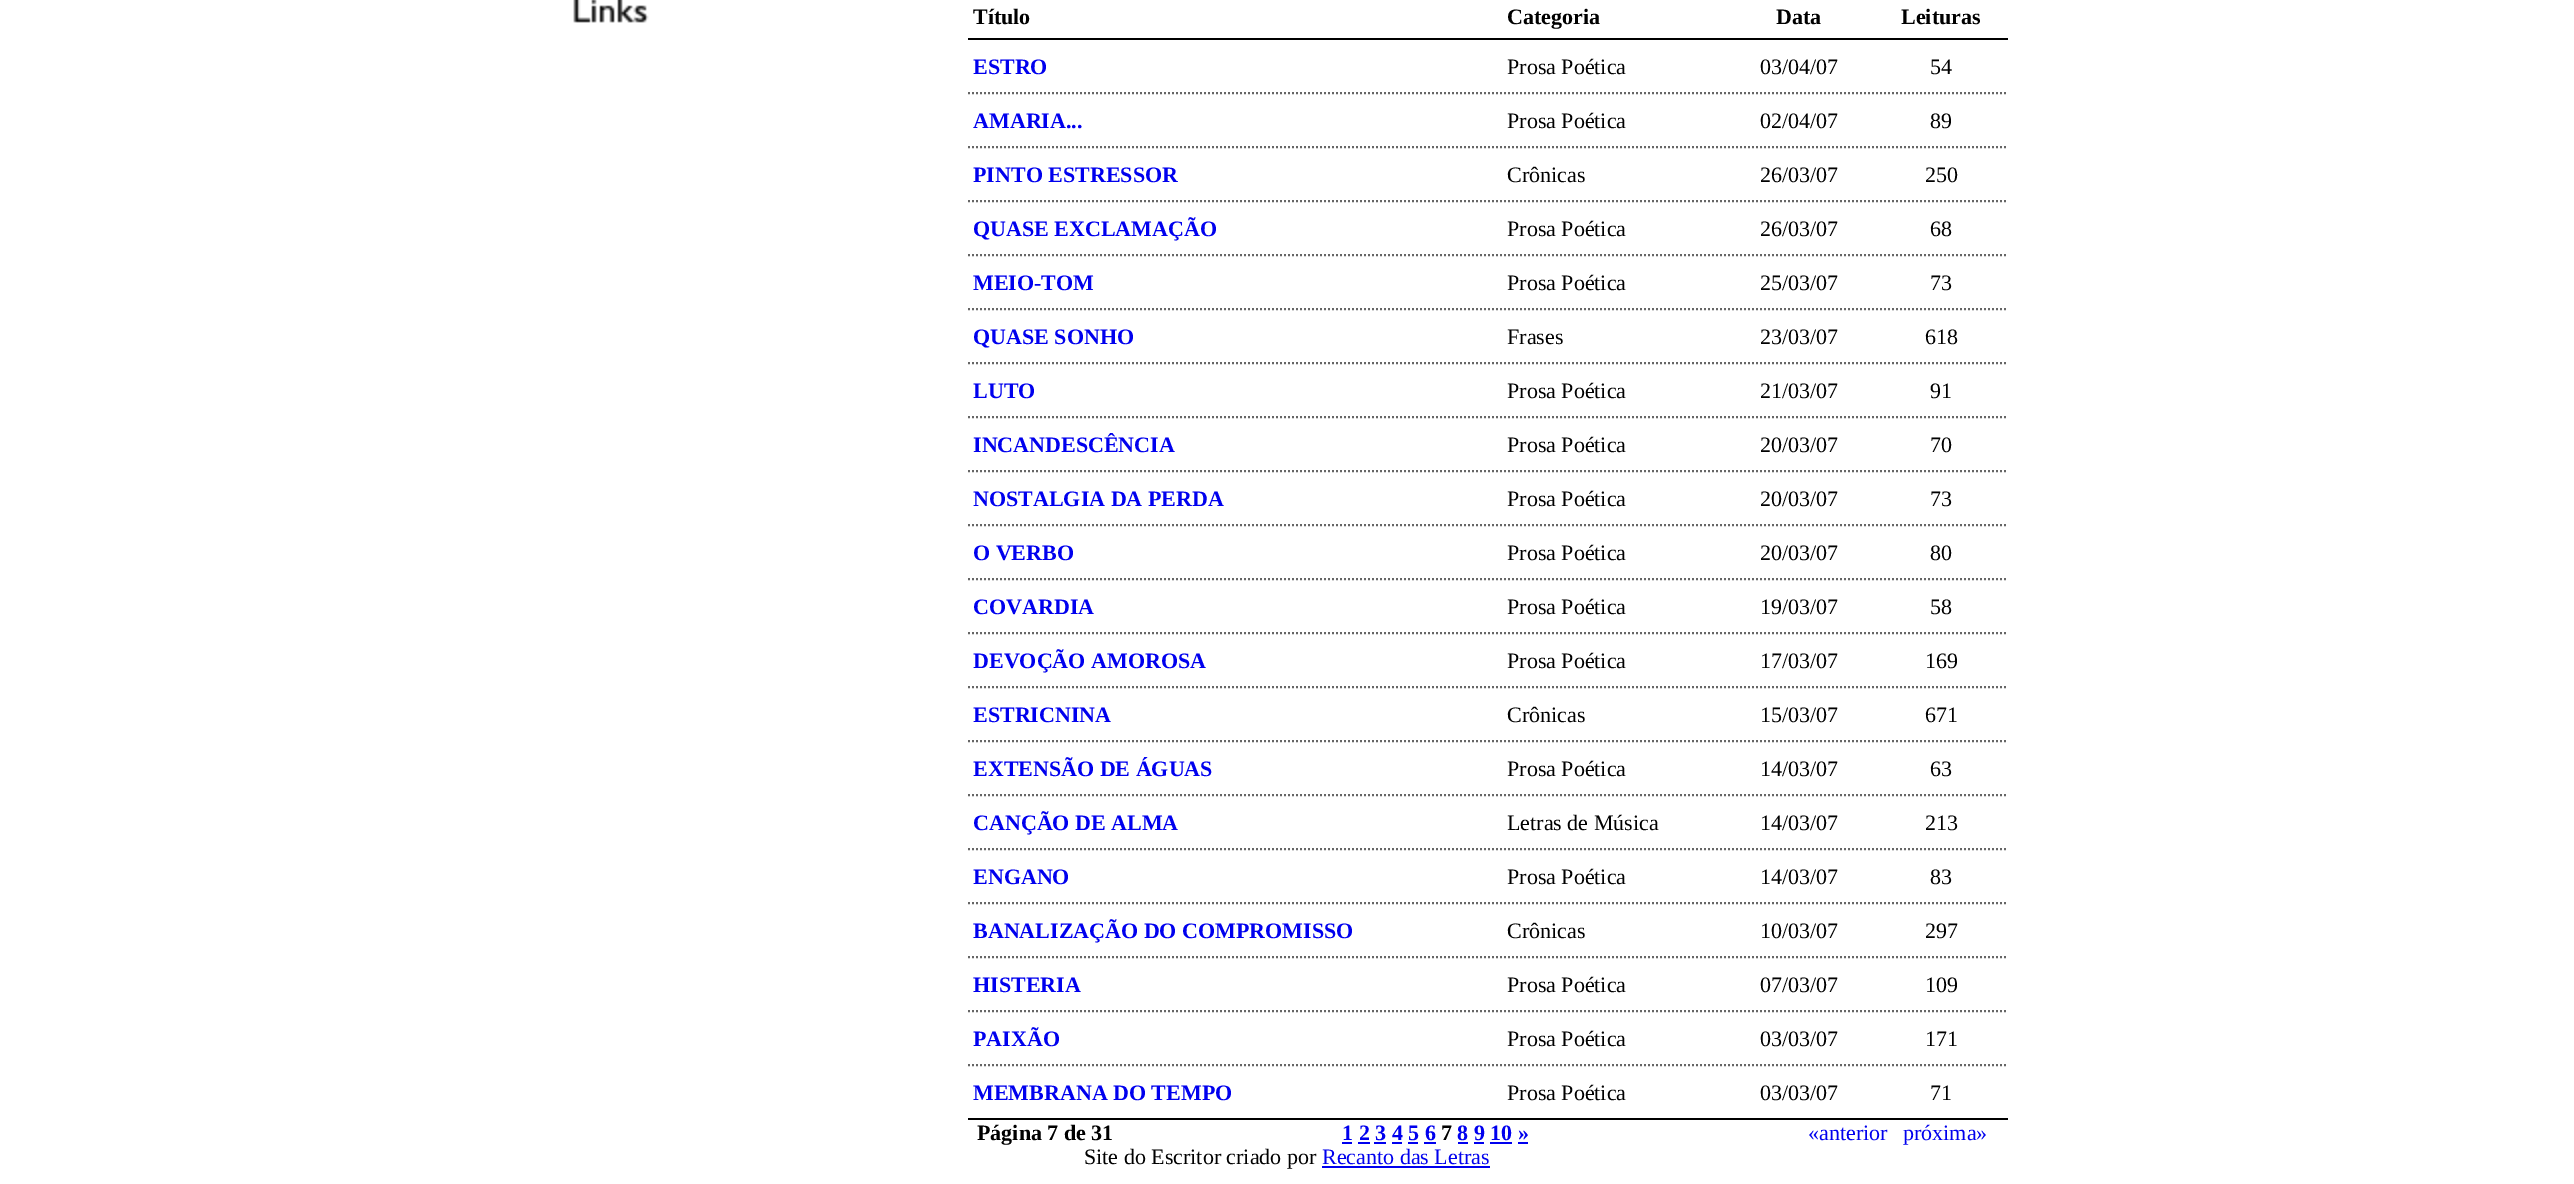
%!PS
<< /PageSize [2574 1184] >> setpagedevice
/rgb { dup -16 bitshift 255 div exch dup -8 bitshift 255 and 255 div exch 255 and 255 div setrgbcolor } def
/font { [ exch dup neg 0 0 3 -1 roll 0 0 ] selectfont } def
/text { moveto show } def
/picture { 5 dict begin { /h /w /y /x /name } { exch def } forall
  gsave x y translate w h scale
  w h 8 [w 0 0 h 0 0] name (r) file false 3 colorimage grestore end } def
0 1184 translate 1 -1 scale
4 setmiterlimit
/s1 { /LiberationSerif-Bold 22 font 16#000000 rgb } def
/s2 { /LiberationSerif-Bold 22 font 16#0000EE rgb } def
/s3 { /LiberationSerif-Regular 22 font 16#000000 rgb } def
/s4 { /LiberationSerif-Regular 22 font 16#0000EE rgb } def
16#FFFFFF rgb
0 0 2574 1184 rectfill
(pic1.raw) 573 0 76 23 picture
16#000000 rgb
968 38 1040 2 rectfill
s1
(Título) 973 24 text
(Categoria) 1507 24 text
(Data) 1776 24 text
(Leituras) 1901 24 text
16#666666 rgb
2 setlinewidth
[2 2] 0 setdash
968 93 moveto 1500 93 lineto stroke
s2
(ESTRO) 973 74 text
16#666666 rgb
1500 93 moveto 1724 93 lineto stroke
s3
(Prosa Poética) 1507 74 text
16#666666 rgb
1724 93 moveto 1876 93 lineto stroke
s3
(03/04/07) 1760 74 text
16#666666 rgb
1876 93 moveto 2008 93 lineto stroke
s3
(54) 1930 74 text
16#666666 rgb
968 147 moveto 1500 147 lineto stroke
s2
(AMARIA...) 973 128 text
16#666666 rgb
1500 147 moveto 1724 147 lineto stroke
s3
(Prosa Poética) 1507 128 text
16#666666 rgb
1724 147 moveto 1876 147 lineto stroke
s3
(02/04/07) 1760 128 text
16#666666 rgb
1876 147 moveto 2008 147 lineto stroke
s3
(89) 1930 128 text
16#666666 rgb
968 201 moveto 1500 201 lineto stroke
s2
(PINTO ESTRESSOR) 973 182 text
16#666666 rgb
1500 201 moveto 1724 201 lineto stroke
s3
(Crônicas) 1507 182 text
16#666666 rgb
1724 201 moveto 1876 201 lineto stroke
s3
(26/03/07) 1760 182 text
16#666666 rgb
1876 201 moveto 2008 201 lineto stroke
s3
(250) 1925 182 text
16#666666 rgb
968 255 moveto 1500 255 lineto stroke
s2
(QUASE EXCLAMAÇÃO) 973 236 text
16#666666 rgb
1500 255 moveto 1724 255 lineto stroke
s3
(Prosa Poética) 1507 236 text
16#666666 rgb
1724 255 moveto 1876 255 lineto stroke
s3
(26/03/07) 1760 236 text
16#666666 rgb
1876 255 moveto 2008 255 lineto stroke
s3
(68) 1930 236 text
16#666666 rgb
968 309 moveto 1500 309 lineto stroke
s2
(MEIO-TOM) 973 290 text
16#666666 rgb
1500 309 moveto 1724 309 lineto stroke
s3
(Prosa Poética) 1507 290 text
16#666666 rgb
1724 309 moveto 1876 309 lineto stroke
s3
(25/03/07) 1760 290 text
16#666666 rgb
1876 309 moveto 2008 309 lineto stroke
s3
(73) 1930 290 text
16#666666 rgb
968 363 moveto 1500 363 lineto stroke
s2
(QUASE SONHO) 973 344 text
16#666666 rgb
1500 363 moveto 1724 363 lineto stroke
s3
(Frases) 1507 344 text
16#666666 rgb
1724 363 moveto 1876 363 lineto stroke
s3
(23/03/07) 1760 344 text
16#666666 rgb
1876 363 moveto 2008 363 lineto stroke
s3
(618) 1925 344 text
16#666666 rgb
968 417 moveto 1500 417 lineto stroke
s2
(LUTO) 973 398 text
16#666666 rgb
1500 417 moveto 1724 417 lineto stroke
s3
(Prosa Poética) 1507 398 text
16#666666 rgb
1724 417 moveto 1876 417 lineto stroke
s3
(21/03/07) 1760 398 text
16#666666 rgb
1876 417 moveto 2008 417 lineto stroke
s3
(91) 1930 398 text
16#666666 rgb
968 471 moveto 1500 471 lineto stroke
s2
(INCANDESCÊNCIA) 973 452 text
16#666666 rgb
1500 471 moveto 1724 471 lineto stroke
s3
(Prosa Poética) 1507 452 text
16#666666 rgb
1724 471 moveto 1876 471 lineto stroke
s3
(20/03/07) 1760 452 text
16#666666 rgb
1876 471 moveto 2008 471 lineto stroke
s3
(70) 1930 452 text
16#666666 rgb
968 525 moveto 1500 525 lineto stroke
s2
(NOSTALGIA DA PERDA) 973 506 text
16#666666 rgb
1500 525 moveto 1724 525 lineto stroke
s3
(Prosa Poética) 1507 506 text
16#666666 rgb
1724 525 moveto 1876 525 lineto stroke
s3
(20/03/07) 1760 506 text
16#666666 rgb
1876 525 moveto 2008 525 lineto stroke
s3
(73) 1930 506 text
16#666666 rgb
968 579 moveto 1500 579 lineto stroke
s2
(O VERBO) 973 560 text
16#666666 rgb
1500 579 moveto 1724 579 lineto stroke
s3
(Prosa Poética) 1507 560 text
16#666666 rgb
1724 579 moveto 1876 579 lineto stroke
s3
(20/03/07) 1760 560 text
16#666666 rgb
1876 579 moveto 2008 579 lineto stroke
s3
(80) 1930 560 text
16#666666 rgb
968 633 moveto 1500 633 lineto stroke
s2
(COVARDIA) 973 614 text
16#666666 rgb
1500 633 moveto 1724 633 lineto stroke
s3
(Prosa Poética) 1507 614 text
16#666666 rgb
1724 633 moveto 1876 633 lineto stroke
s3
(19/03/07) 1760 614 text
16#666666 rgb
1876 633 moveto 2008 633 lineto stroke
s3
(58) 1930 614 text
16#666666 rgb
968 687 moveto 1500 687 lineto stroke
s2
(DEVOÇÃO AMOROSA) 973 668 text
16#666666 rgb
1500 687 moveto 1724 687 lineto stroke
s3
(Prosa Poética) 1507 668 text
16#666666 rgb
1724 687 moveto 1876 687 lineto stroke
s3
(17/03/07) 1760 668 text
16#666666 rgb
1876 687 moveto 2008 687 lineto stroke
s3
(169) 1925 668 text
16#666666 rgb
968 741 moveto 1500 741 lineto stroke
s2
(ESTRICNINA) 973 722 text
16#666666 rgb
1500 741 moveto 1724 741 lineto stroke
s3
(Crônicas) 1507 722 text
16#666666 rgb
1724 741 moveto 1876 741 lineto stroke
s3
(15/03/07) 1760 722 text
16#666666 rgb
1876 741 moveto 2008 741 lineto stroke
s3
(671) 1925 722 text
16#666666 rgb
968 795 moveto 1500 795 lineto stroke
s2
(EXTENSÃO DE ÁGUAS) 973 776 text
16#666666 rgb
1500 795 moveto 1724 795 lineto stroke
s3
(Prosa Poética) 1507 776 text
16#666666 rgb
1724 795 moveto 1876 795 lineto stroke
s3
(14/03/07) 1760 776 text
16#666666 rgb
1876 795 moveto 2008 795 lineto stroke
s3
(63) 1930 776 text
16#666666 rgb
968 849 moveto 1500 849 lineto stroke
s2
(CANÇÃO DE ALMA) 973 830 text
16#666666 rgb
1500 849 moveto 1724 849 lineto stroke
s3
(Letras de Música) 1507 830 text
16#666666 rgb
1724 849 moveto 1876 849 lineto stroke
s3
(14/03/07) 1760 830 text
16#666666 rgb
1876 849 moveto 2008 849 lineto stroke
s3
(213) 1925 830 text
16#666666 rgb
968 903 moveto 1500 903 lineto stroke
s2
(ENGANO) 973 884 text
16#666666 rgb
1500 903 moveto 1724 903 lineto stroke
s3
(Prosa Poética) 1507 884 text
16#666666 rgb
1724 903 moveto 1876 903 lineto stroke
s3
(14/03/07) 1760 884 text
16#666666 rgb
1876 903 moveto 2008 903 lineto stroke
s3
(83) 1930 884 text
16#666666 rgb
968 957 moveto 1500 957 lineto stroke
s2
(BANALIZAÇÃO DO COMPROMISSO) 973 938 text
16#666666 rgb
1500 957 moveto 1724 957 lineto stroke
s3
(Crônicas) 1507 938 text
16#666666 rgb
1724 957 moveto 1876 957 lineto stroke
s3
(10/03/07) 1760 938 text
16#666666 rgb
1876 957 moveto 2008 957 lineto stroke
s3
(297) 1925 938 text
16#666666 rgb
968 1011 moveto 1500 1011 lineto stroke
s2
(HISTERIA) 973 992 text
16#666666 rgb
1500 1011 moveto 1724 1011 lineto stroke
s3
(Prosa Poética) 1507 992 text
16#666666 rgb
1724 1011 moveto 1876 1011 lineto stroke
s3
(07/03/07) 1760 992 text
16#666666 rgb
1876 1011 moveto 2008 1011 lineto stroke
s3
(109) 1925 992 text
16#666666 rgb
968 1065 moveto 1500 1065 lineto stroke
s2
(PAIXÃO) 973 1046 text
16#666666 rgb
1500 1065 moveto 1724 1065 lineto stroke
s3
(Prosa Poética) 1507 1046 text
16#666666 rgb
1724 1065 moveto 1876 1065 lineto stroke
s3
(03/03/07) 1760 1046 text
16#666666 rgb
1876 1065 moveto 2008 1065 lineto stroke
s3
(171) 1925 1046 text
s2
(MEMBRANA DO TEMPO) 973 1100 text
s3
(Prosa Poética) 1507 1100 text
(03/03/07) 1760 1100 text
(71) 1930 1100 text
968 1118 1040 2 rectfill
s1
(Página 7 de 31) 977 1140 text
s2
(1 2 3 4 5 6) 1342 1140 text
1342 1142 10 2 rectfill
s1
(7) 1441 1140 text
s2
(8 9 10 ») 1457 1140 text
1458 1142 10 2 rectfill
1358 1142 12 2 rectfill
1374 1142 12 2 rectfill
1392 1142 10 2 rectfill
1408 1142 10 2 rectfill
1424 1142 12 2 rectfill
1474 1142 10 2 rectfill
1490 1142 22 2 rectfill
1518 1142 10 2 rectfill
s4
(«anterior) 1808 1140 text
(próxima») 1903 1140 text
s3
(Site do Escritor criado por) 1084 1164 text
s4
(Recanto das Letras) 1322 1164 text
1322 1166 168 2 rectfill
showpage
